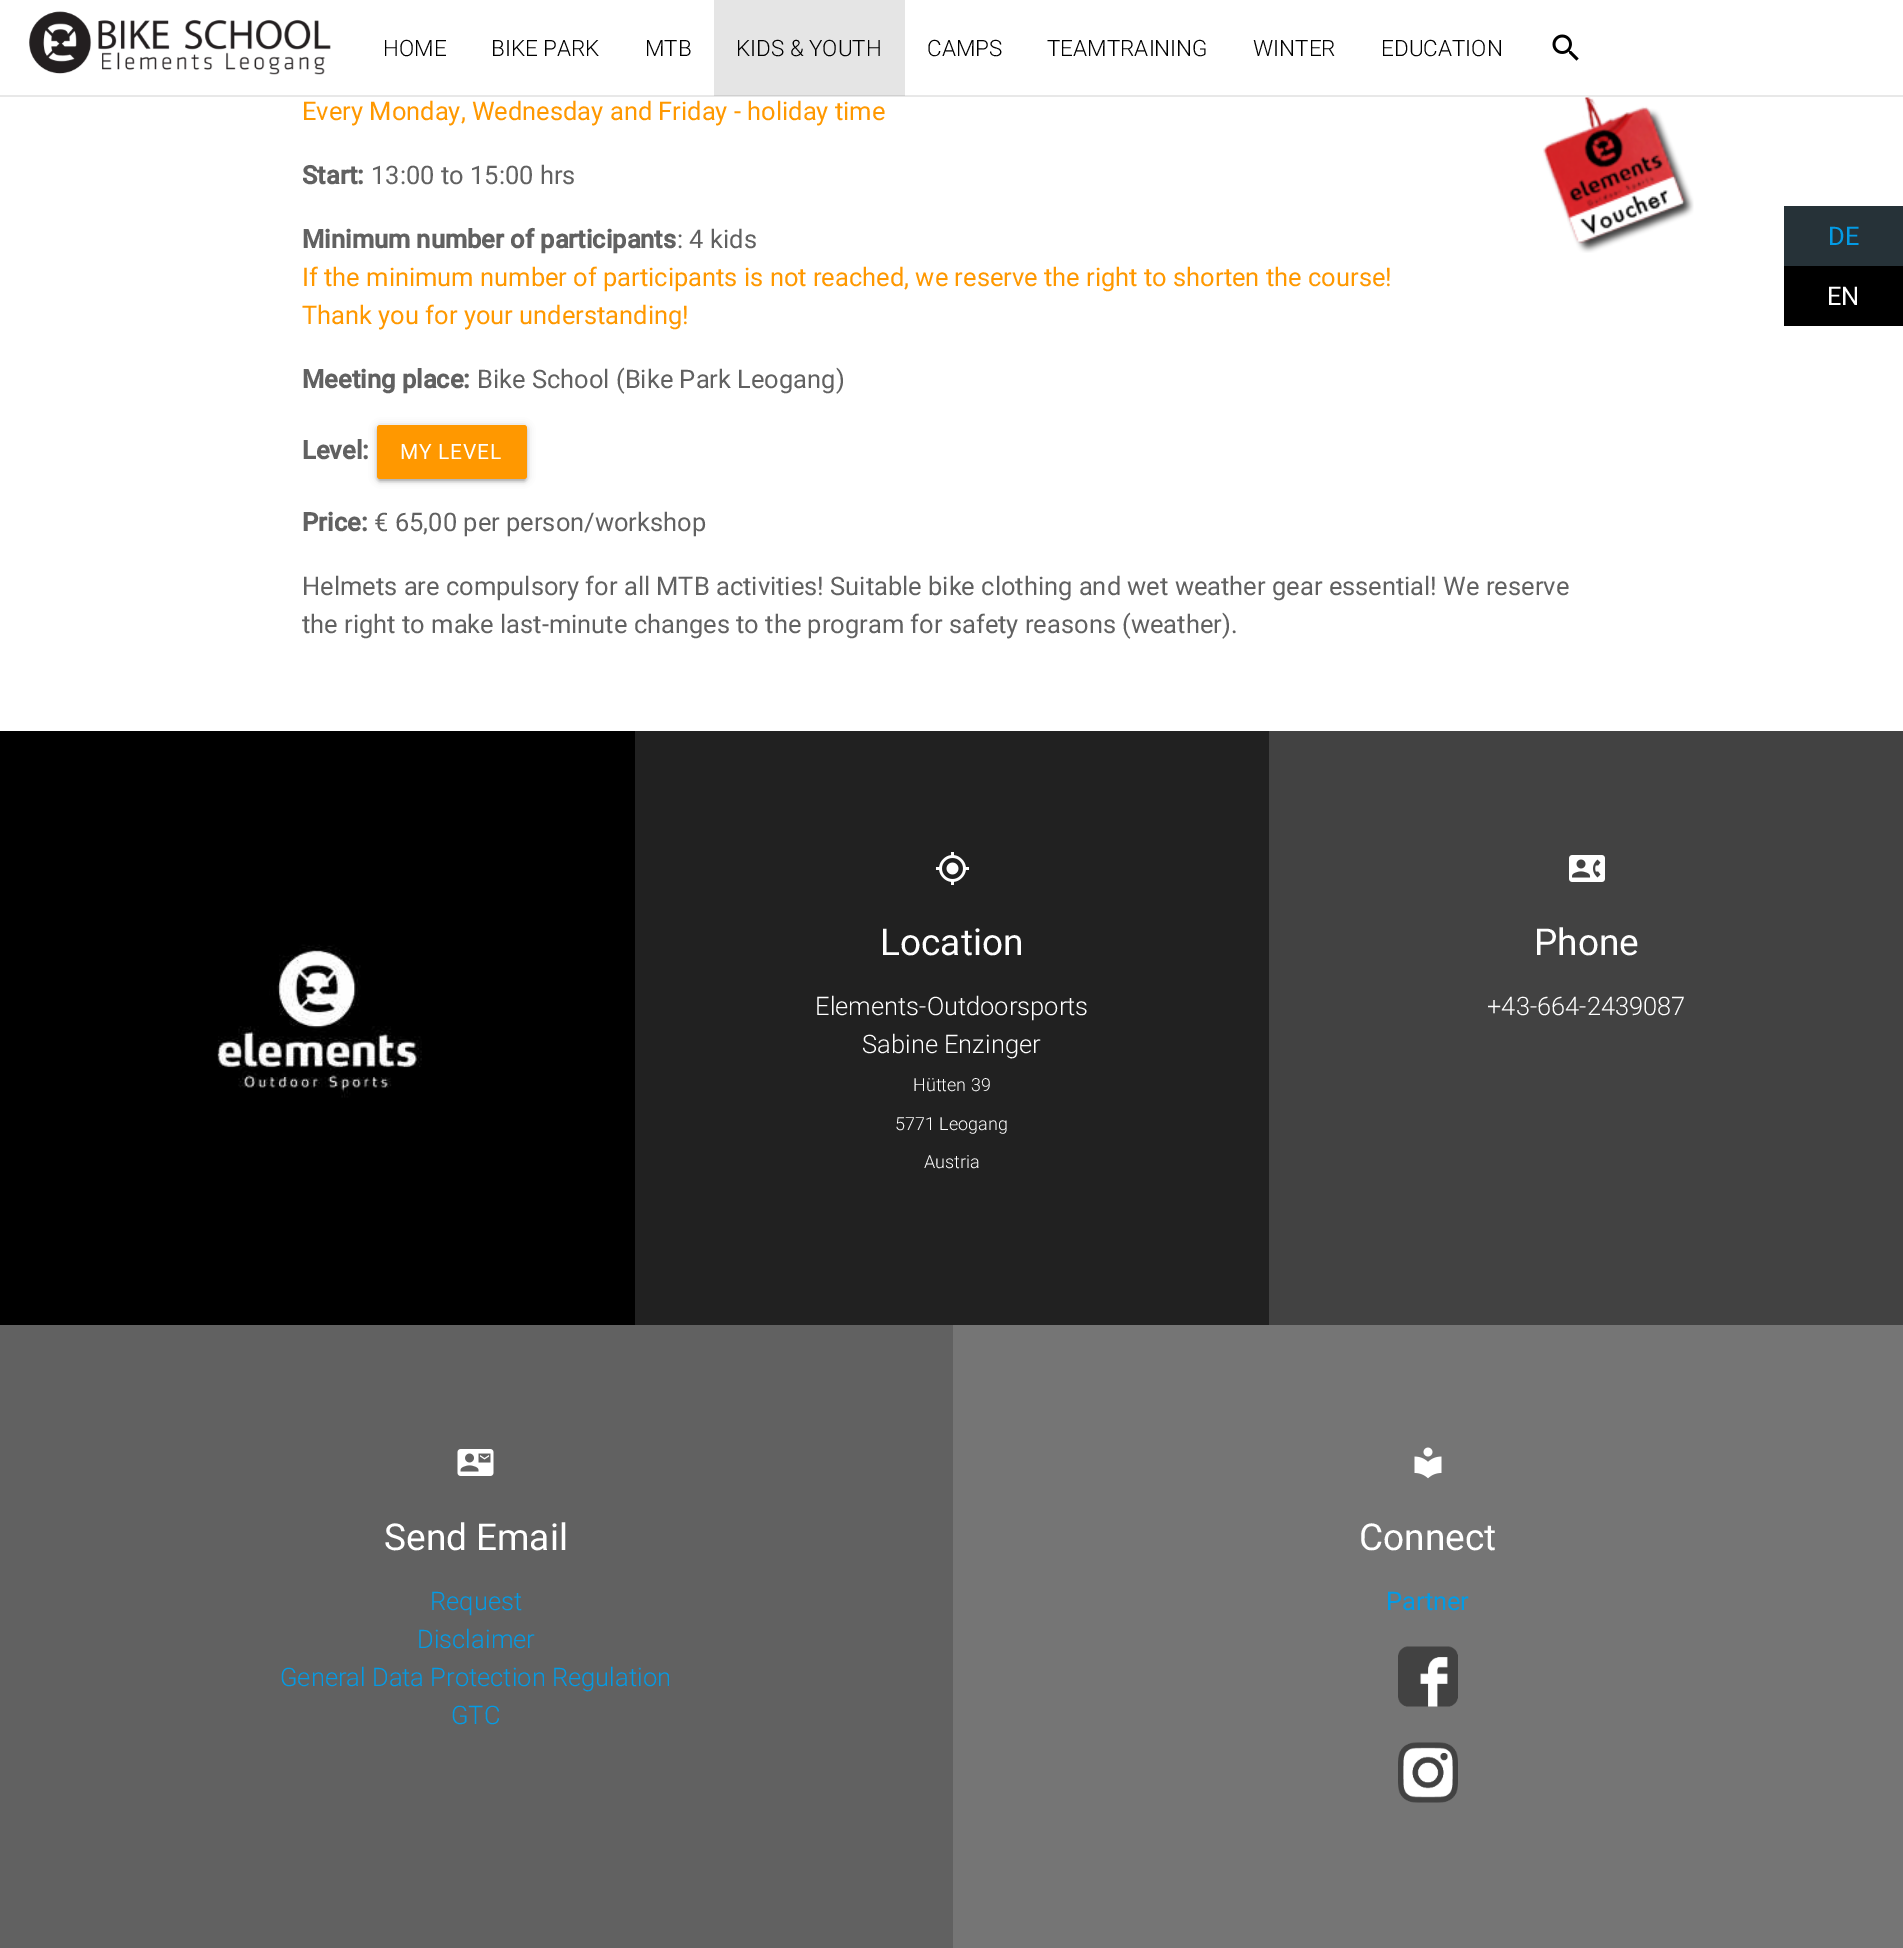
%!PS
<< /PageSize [1903 1948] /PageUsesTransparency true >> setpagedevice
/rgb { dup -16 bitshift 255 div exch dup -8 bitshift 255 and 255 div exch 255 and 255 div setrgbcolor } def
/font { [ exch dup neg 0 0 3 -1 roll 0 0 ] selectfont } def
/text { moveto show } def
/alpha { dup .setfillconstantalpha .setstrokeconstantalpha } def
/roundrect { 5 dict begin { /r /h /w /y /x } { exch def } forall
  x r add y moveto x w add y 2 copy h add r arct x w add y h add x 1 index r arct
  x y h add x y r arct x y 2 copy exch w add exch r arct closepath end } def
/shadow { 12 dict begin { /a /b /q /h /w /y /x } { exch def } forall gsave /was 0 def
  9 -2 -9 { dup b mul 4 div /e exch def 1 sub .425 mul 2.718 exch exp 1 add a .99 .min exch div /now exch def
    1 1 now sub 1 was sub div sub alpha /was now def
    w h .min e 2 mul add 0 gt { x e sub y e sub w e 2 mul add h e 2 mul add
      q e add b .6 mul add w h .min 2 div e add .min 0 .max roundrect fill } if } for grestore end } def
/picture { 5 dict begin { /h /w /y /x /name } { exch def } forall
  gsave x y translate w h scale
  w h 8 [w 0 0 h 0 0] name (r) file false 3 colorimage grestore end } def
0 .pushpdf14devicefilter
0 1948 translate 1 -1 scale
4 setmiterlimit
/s1 { /Roboto-Light 22.5 font 16#000000 rgb } def
/s2 { /Roboto-Regular 25.5 font 16#FF9800 rgb } def
/s3 { /Roboto-Bold 25.5 font 16#616161 rgb } def
/s4 { /Roboto-Regular 25.5 font 16#616161 rgb } def
/s5 { /Roboto-Regular 25.5 font 16#039BE5 rgb } def
/s6 { /Roboto-Regular 25.5 font 16#FFFFFF rgb } def
/s7 { /Roboto-Regular 37 font 16#FFFFFF rgb } def
/s8 { /Roboto-Light 25.5 font 16#FFFFFF rgb } def
/s9 { /Roboto-Light 18 font 16#FFFFFF rgb } def
/s10 { /Roboto-Light 25.5 font 16#039BE5 rgb } def
16#FFFFFF rgb
0 0 1903 1948 rectfill
16#E8E8E8 rgb
0 95 1903 2 rectfill
(pic1.raw) 29 11 302 64 picture
s1
(HOME) 383 56 text
(BIKE PARK) 491 56 text
(MTB) 645 56 text
0.1 alpha
714 0 191 96 rectfill
1 alpha
(KIDS & YOUTH) 736 56 text
(CAMPS) 927 56 text
(TEAMTRAINING) 1047 56 text
(WINTER) 1253 56 text
(EDUCATION) 1381 56 text
(pic2.raw) 1552 34 27 27 picture
s2
(Every Monday, Wednesday and Friday - holiday time) 302 120 text
s3
(Start:) 302 184 text
s4
(13:00 to 15:00 hrs) 371 184 text
s3
(Minimum number of participants) 302 248 text
s4
(: 4 kids) 677 248 text
s2
(If the minimum number of participants is not reached, we reserve the right to shorten the course!) 302 286 text
(Thank you for your understanding!) 302 324 text
s3
(Meeting place:) 302 388 text
s4
(Bike School \(Bike Park Leogang\)) 477 388 text
s3
(Level:) 302 459 text
16#000000 rgb
377 426 150 54 3 4 0.2 shadow
380 432 144 48 0 1 0.12 shadow
377 428 150 54 3 1.5 0.14 shadow
16#FF9800 rgb
377 425 150 54 3 roundrect fill
/Roboto-Regular 21 font
16#FFFFFF rgb
400 459 moveto 0.75 0 (MY LEVEL) ashow
s3
(Price:) 302 531 text
s4
(€ 65,00 per person/workshop) 374 531 text
(Helmets are compulsory for all MTB activities! Suitable bike clothing and wet weather gear essential! We reserve) 302 595 text
(the right to make last-minute changes to the program for safety reasons \(weather\).) 302 633 text
(pic3.raw) 1543 97 151 156 picture
16#263238 rgb
1784 206 119 60 rectfill
s5
(DE) 1828 245 text
16#000000 rgb
1784 266 119 60 rectfill
s6
(EN) 1827 305 text
16#000000 rgb
0 731 635 594 rectfill
(pic4.raw) 217 944 205 154 picture
16#212121 rgb
635 731 634 594 rectfill
(pic5.raw) 935 852 35 33 picture
s7
(Location) 880 955 text
s8
(Elements-Outdoorsports) 815 1015 text
(Sabine Enzinger) 862 1053 text
s9
(Hütten 39) 913 1091 text
(5771 Leogang) 895 1130 text
(Austria) 924 1168 text
16#424242 rgb
1269 731 634 594 rectfill
(pic6.raw) 1569 855 36 27 picture
s7
(Phone) 1534 955 text
s8
(+43-664-2439087) 1487 1015 text
16#616161 rgb
0 1325 953 623 rectfill
(pic7.raw) 457 1449 37 27 picture
s7
(Send Email) 384 1550 text
s10
(Request) 430 1610 text
(Disclaimer) 417 1648 text
(General Data Protection Regulation) 280 1686 text
(GTC) 451 1724 text
16#757575 rgb
953 1325 950 623 rectfill
(pic8.raw) 1414 1447 28 32 picture
s7
(Connect) 1359 1550 text
s5
(Partner) 1386 1610 text
(pic9.raw) 1398 1646 60 61 picture
(pic10.raw) 1398 1742 60 61 picture
.poppdf14devicefilter showpage
